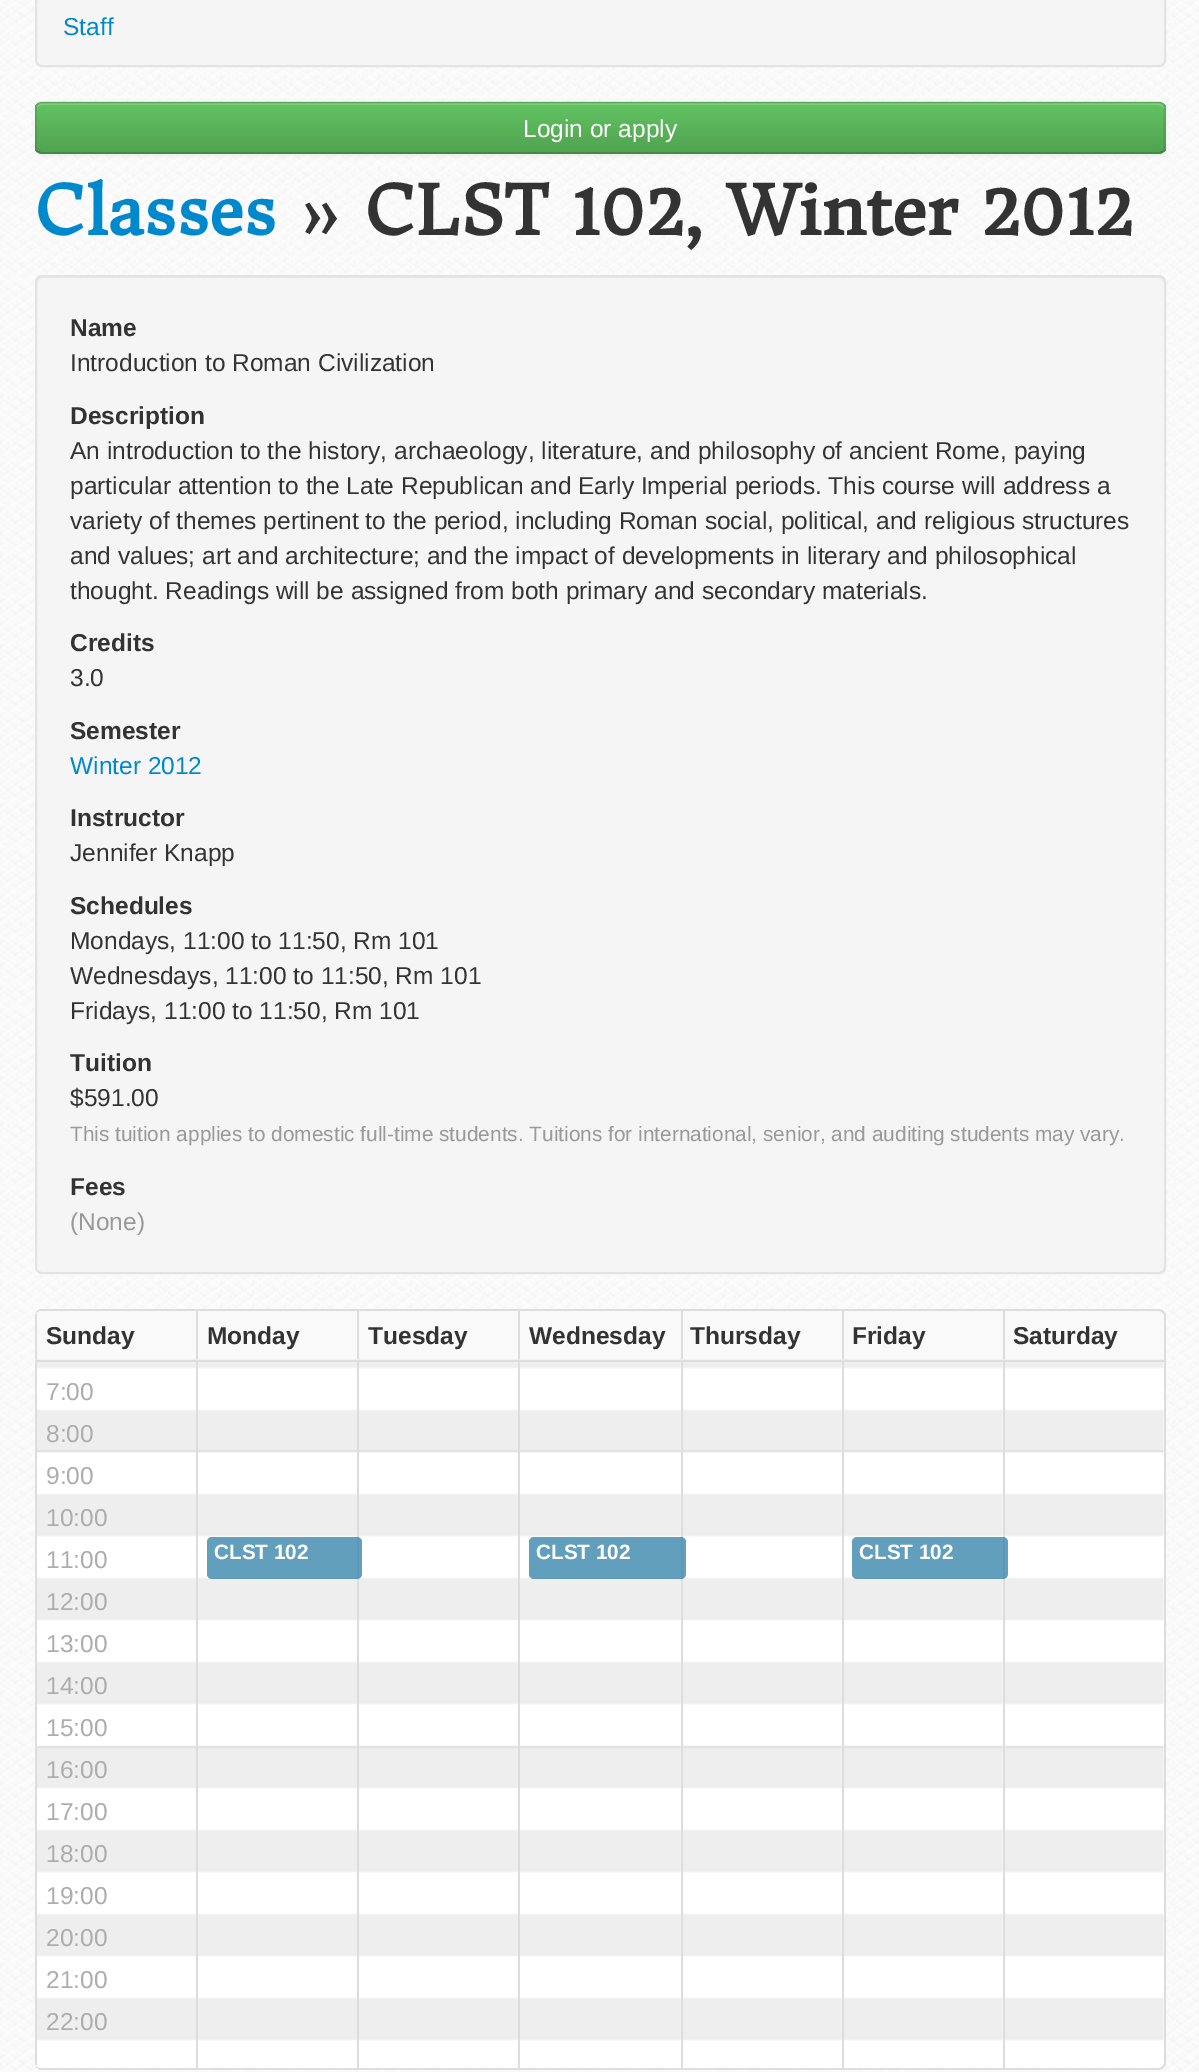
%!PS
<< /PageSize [1199 2072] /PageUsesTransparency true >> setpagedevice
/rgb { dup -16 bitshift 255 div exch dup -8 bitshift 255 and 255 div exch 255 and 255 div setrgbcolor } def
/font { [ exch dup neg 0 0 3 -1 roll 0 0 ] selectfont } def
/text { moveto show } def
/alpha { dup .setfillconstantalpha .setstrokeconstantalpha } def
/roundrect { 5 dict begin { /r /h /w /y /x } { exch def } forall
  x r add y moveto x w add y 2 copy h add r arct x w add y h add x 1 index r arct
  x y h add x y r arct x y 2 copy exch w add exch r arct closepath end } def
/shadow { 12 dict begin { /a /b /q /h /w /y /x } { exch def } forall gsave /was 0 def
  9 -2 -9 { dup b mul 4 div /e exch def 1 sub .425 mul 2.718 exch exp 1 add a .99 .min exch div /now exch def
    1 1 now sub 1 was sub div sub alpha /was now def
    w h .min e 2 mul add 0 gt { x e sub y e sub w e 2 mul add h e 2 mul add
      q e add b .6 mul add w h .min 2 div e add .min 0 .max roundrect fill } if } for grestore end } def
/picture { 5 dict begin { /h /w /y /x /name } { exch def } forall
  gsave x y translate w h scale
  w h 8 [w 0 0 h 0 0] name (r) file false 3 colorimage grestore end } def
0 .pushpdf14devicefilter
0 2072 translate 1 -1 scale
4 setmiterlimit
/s1 { /LiberationSans-Regular 24.5 font 16#0088CC rgb } def
/s2 { /LiberationSans-Regular 24.5 font 16#FFFFFF rgb } def
/s3 { /DonegalOne-Bold 67.4 font 16#0088CC rgb } def
/s4 { /DonegalOne-Bold 67.4 font 16#333333 rgb } def
/s5 { /LiberationSans-Bold 24.5 font 16#333333 rgb } def
/s6 { /LiberationSans-Regular 24.5 font 16#333333 rgb } def
/s7 { /LiberationSans-Regular 20.82 font 16#999999 rgb } def
/s8 { /LiberationSans-Regular 24.5 font 16#999999 rgb } def
/s9 { /LiberationSans-Regular 24.5 font 16#ADADAD rgb } def
/s10 { /LiberationSans-Bold 20.75 font 16#FFFFFF rgb } def
16#FFFFFF rgb
0 0 1199 2072 rectfill
(pic1.raw) 0 0 1199 2072 picture
16#F5F5F5 rgb
36 -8 1129 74 6 roundrect gsave fill grestore
16#E3E3E3 rgb
2 setlinewidth
stroke
s1
(Staff) 63 35 text
16#000000 rgb
35 103 1131 53 7 2 0.05 shadow
16#5BB75B rgb
35 102 1131 52 7 roundrect fill
gsave
35 102 1131 52 7 roundrect clip newpath
gsave 35 103 moveto 1166 103 lineto 1166 152 lineto 35 152 lineto closepath clip newpath
<< /ShadingType 2 /ColorSpace /DeviceRGB /Coords [600 103 600 152] /Extend [true true] /Function << /FunctionType 2 /Domain [0 1] /C0 [0.384 0.769 0.384] /C1 [0.318 0.639 0.318] /N 1 >> >> shfill grestore
grestore
0.2 alpha
16#FFFFFF rgb
42 105 moveto 1158 105 lineto 1161 105 1164 107 1164 110 curveto 1164 108 lineto 1164 105 1162 103 1159 103 curveto 42 103 lineto 39 103 37 105 37 108 curveto 37 110 lineto 37 107 39 105 42 105 curveto closepath fill
0.25 alpha
16#000000 rgb
1.8 setlinewidth
1163 151.5 moveto 1161.5 152.5 1160 153 1158.5 153 curveto 42 153 lineto 40.5 153 39 152.5 37.5 151.5 curveto stroke
0.1 alpha
37.5 151.5 moveto 35 148.5 36 144 36 140.5 curveto 36 108 lineto 36 105 39 102.5 42 102.5 curveto 1158.5 102.5 lineto 1161.5 102.5 1164.5 105 1164.5 108 curveto 1164.5 140.5 lineto 1164.5 144 1165.5 148.5 1163 151.5 curveto stroke
1 alpha
s2
(Login or apply) 523 137 text
s3
(Classes) 35 235 text
s4
(» CLST 102, Winter 2012) 298 235 text
16#F5F5F5 rgb
35 275 1131 999 7 roundrect fill
16#E9E9E9 rgb
42 278 moveto 1158 278 lineto 1161 278 1164 281 1164 284 curveto 1164 282 lineto 1164 279 1162 277 1159 277 curveto 42 277 lineto 39 277 37 279 37 282 curveto 37 284 lineto 37 281 39 278 42 278 curveto closepath fill
16#E3E3E3 rgb
2 setlinewidth
36 276 1129 997 6 roundrect stroke
s5
(Name) 70 336 text
s6
(Introduction to Roman Civilization) 70 371 text
s5
(Description) 70 424 text
s6
(An introduction to the history, archaeology, literature, and philosophy of ancient Rome, paying) 70 459 text
(particular attention to the Late Republican and Early Imperial periods. This course will address a) 70 494 text
(variety of themes pertinent to the period, including Roman social, political, and religious structures) 70 529 text
(and values; art and architecture; and the impact of developments in literary and philosophical) 70 564 text
(thought. Readings will be assigned from both primary and secondary materials.) 70 599 text
s5
(Credits) 70 651 text
s6
(3.0) 70 686 text
s5
(Semester) 70 739 text
s1
(Winter 2012) 70 774 text
s5
(Instructor) 70 826 text
s6
(Jennifer Knapp) 70 861 text
s5
(Schedules) 70 914 text
s6
(Mondays, 11:00 to 11:50, Rm 101) 70 949 text
(Wednesdays, 11:00 to 11:50, Rm 101) 70 984 text
(Fridays, 11:00 to 11:50, Rm 101) 70 1019 text
s5
(Tuition) 70 1071 text
s6
($591.00) 70 1106 text
s7
(This tuition applies to domestic full-time students. Tuitions for international, senior, and auditing students may vary.) 70 1141 text
s5
(Fees) 70 1195 text
s8
(\(None\)) 70 1230 text
16#FFFFFF rgb
35 1309 1131 761 7 roundrect fill
16#DDDDDD rgb
42 1309 moveto 1158 1309 lineto 1162 1309 1166 1312 1166 1316 curveto 1166 2063 lineto 1166 2067 1162 2070 1158 2070 curveto 42 2070 lineto 38 2070 35 2067 35 2063 curveto 35 1316 lineto 35 1312 38 1309 42 1309 curveto closepath 42 1311 moveto 1158 1311 lineto 1161 1311 1164 1313 1164 1316 curveto 1164 2063 lineto 1164 2066 1161 2068 1158 2068 curveto 42 2068 lineto 38 2068 35 2066 35 2063 curveto 35 1316 lineto 35 1313 38 1311 42 1311 curveto closepath eofill
16#F9F9F9 rgb
42 1311 moveto 196 1311 lineto 196 1360 lineto 35 1360 lineto 35 1318 lineto 35 1314 38 1311 42 1311 curveto closepath fill
16#DDDDDD rgb
35 1314 2 46 rectfill
s5
(Sunday) 46 1344 text
16#F9F9F9 rgb
198 1311 159 49 rectfill
16#DDDDDD rgb
196 1311 2 49 rectfill
s5
(Monday) 207 1344 text
16#F9F9F9 rgb
359 1311 159 49 rectfill
16#DDDDDD rgb
357 1311 2 49 rectfill
s5
(Tuesday) 368 1344 text
16#F9F9F9 rgb
520 1311 161 49 rectfill
16#DDDDDD rgb
518 1311 2 49 rectfill
s5
(Wednesday) 529 1344 text
16#F9F9F9 rgb
683 1311 159 49 rectfill
16#DDDDDD rgb
681 1311 2 49 rectfill
s5
(Thursday) 690 1344 text
16#F9F9F9 rgb
844 1311 159 49 rectfill
16#DDDDDD rgb
842 1311 2 49 rectfill
s5
(Friday) 852 1344 text
16#F9F9F9 rgb
1003 1311 moveto 1157 1311 lineto 1161 1311 1164 1314 1164 1318 curveto 1164 1360 lineto 1003 1360 lineto closepath fill
16#DDDDDD rgb
1003 1311 2 49 rectfill
s5
(Saturday) 1013 1344 text
(pic2.raw) 35 1359 161 709 picture
16#DDDDDD rgb
35 1360 161 2 rectfill
35 1360 2 705 rectfill
s9
(7:00) 46 1400 text
(8:00) 46 1442 text
(9:00) 46 1484 text
(10:00) 46 1526 text
(11:00) 46 1568 text
(12:00) 46 1610 text
(13:00) 46 1652 text
(14:00) 46 1694 text
(15:00) 46 1736 text
(16:00) 46 1778 text
(17:00) 46 1820 text
(18:00) 46 1862 text
(19:00) 46 1904 text
(20:00) 46 1946 text
(21:00) 46 1988 text
(22:00) 46 2030 text
(pic3.raw) 196 1359 161 682 picture
16#DDDDDD rgb
196 1360 161 2 rectfill
196 1360 2 709 rectfill
(pic3.raw) 357 1359 161 682 picture
357 1360 161 2 rectfill
357 1360 2 709 rectfill
0.8 alpha
16#3A87AD rgb
207 1537 155 42 5 roundrect fill
1 alpha
s10
(CLST 102) 214 1559 text
(pic4.raw) 518 1359 163 682 picture
16#DDDDDD rgb
518 1360 163 2 rectfill
518 1360 2 709 rectfill
(pic5.raw) 680 1359 162 682 picture
681 1360 161 2 rectfill
681 1360 2 709 rectfill
0.8 alpha
16#3A87AD rgb
529 1537 157 42 5 roundrect fill
1 alpha
s10
(CLST 102) 536 1559 text
(pic5.raw) 841 1359 162 682 picture
16#DDDDDD rgb
842 1360 161 2 rectfill
842 1360 2 709 rectfill
(pic6.raw) 1003 1359 161 682 picture
1003 1360 161 2 rectfill
1003 1360 2 709 rectfill
0.8 alpha
16#3A87AD rgb
852 1537 156 42 5 roundrect fill
1 alpha
s10
(CLST 102) 859 1559 text
.poppdf14devicefilter showpage
